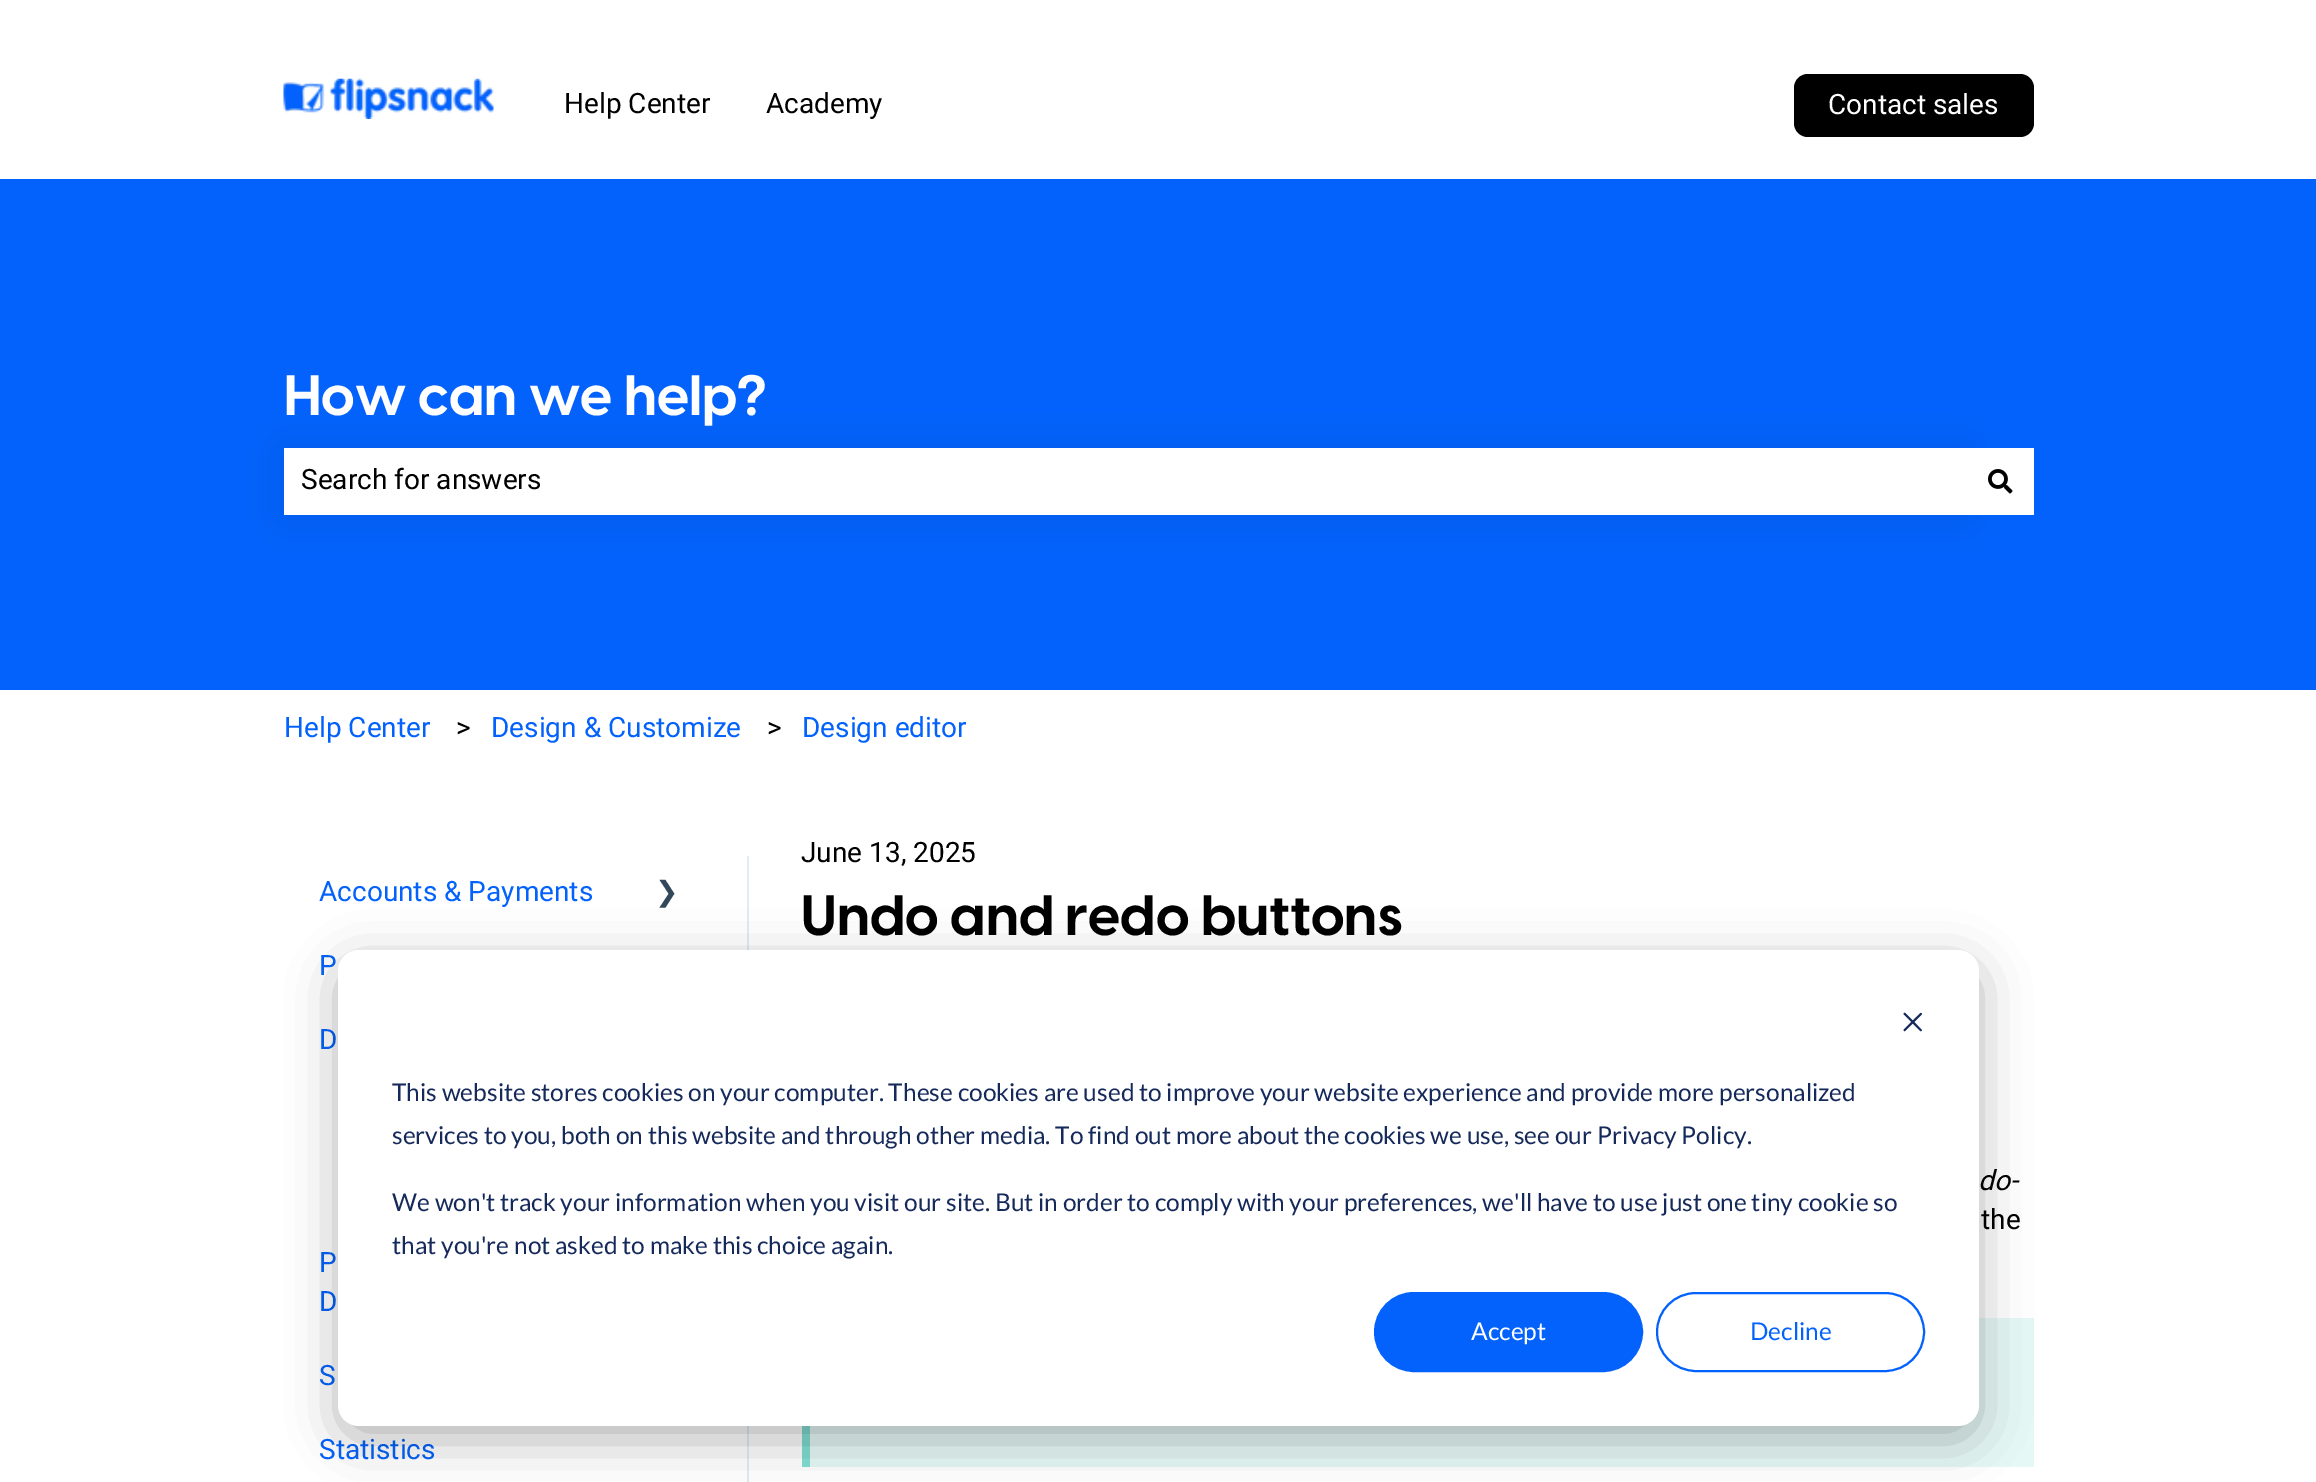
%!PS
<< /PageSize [2316 1482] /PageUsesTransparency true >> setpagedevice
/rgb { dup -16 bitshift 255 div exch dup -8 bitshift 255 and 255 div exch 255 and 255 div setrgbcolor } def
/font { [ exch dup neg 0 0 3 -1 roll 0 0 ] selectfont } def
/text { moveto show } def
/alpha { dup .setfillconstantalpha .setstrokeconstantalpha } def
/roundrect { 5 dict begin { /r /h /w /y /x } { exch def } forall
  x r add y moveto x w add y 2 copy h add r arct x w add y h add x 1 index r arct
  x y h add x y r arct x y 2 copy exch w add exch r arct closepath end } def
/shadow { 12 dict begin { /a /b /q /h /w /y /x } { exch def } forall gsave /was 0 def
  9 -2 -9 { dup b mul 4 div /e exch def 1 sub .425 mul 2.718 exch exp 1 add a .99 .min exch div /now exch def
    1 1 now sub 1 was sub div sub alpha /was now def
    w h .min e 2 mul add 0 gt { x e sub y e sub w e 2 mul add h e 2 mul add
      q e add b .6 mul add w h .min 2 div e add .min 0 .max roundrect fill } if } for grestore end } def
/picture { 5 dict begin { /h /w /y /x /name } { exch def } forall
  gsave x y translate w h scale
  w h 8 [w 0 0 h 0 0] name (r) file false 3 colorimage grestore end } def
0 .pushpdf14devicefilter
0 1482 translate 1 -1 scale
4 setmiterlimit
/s1 { /Roboto-Regular 28 font 16#000000 rgb } def
/s2 { /Roboto-Regular 28 font 16#FFFFFF rgb } def
/s3 { /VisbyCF-Bold 56 font 16#FFFFFF rgb } def
/s4 { /Roboto-Regular 28 font 16#0362FC rgb } def
/s5 { /DejaVuSans-Regular 28 font 16#33475B rgb } def
/s6 { /VisbyCF-Bold 56 font 16#000000 rgb } def
/s7 { /Roboto-Italic 28 font 16#000000 rgb } def
/s8 { /Lato-Regular 24.5 font 16#15295A rgb } def
/s9 { /Lato-Regular 24.5 font 16#FFFFFF rgb } def
/s10 { /Lato-Regular 24.5 font 16#0362FC rgb } def
16#FFFFFF rgb
0 0 2316 1482 rectfill
(pic1.raw) 283 78 211 41 picture
s1
(Help Center) 564 113 text
(Academy) 766 113 text
1794 74 240 63 14 roundrect fill
s2
(Contact sales) 1828 114 text
16#0362FC rgb
0 179 2316 511 rectfill
s3
(How can we help?) 284 415 text
16#000000 rgb
284 450 1683 66 0 21 0.08 shadow
16#FFFFFF rgb
284 448 1750 67 rectfill
s1
(Search for answers) 301 489 text
(pic2.raw) 1988 469 25 25 picture
s4
(Help Center) 284 737 text
s1
(>) 456 737 text
s4
(Design & Customize) 491 737 text
s1
(>) 767 737 text
s4
(Design editor) 802 737 text
16#E2EBF4 rgb
747 856 2 626 rectfill
s4
(Accounts & Payments) 319 901 text
s5
(❯) 655 901 text
s4
(P) 319 975 text
(D) 319 1049 text
(P) 319 1272 text
(D) 319 1311 text
(S) 319 1385 text
(Statistics) 319 1459 text
s1
(June 13, 2025) 801 862 text
s6
(Undo and redo buttons) 801 935 text
s7
(do-) 1978 1190 text
s1
(the) 1981 1229 text
16#E5F8F6 rgb
810 1318 1224 149 rectfill
16#7FDED2 rgb
802 1426 8 41 rectfill
16#000000 rgb
338 964 1641 476 21 24.5 0.28 shadow
16#FFFFFF rgb
338 950 1641 476 21 roundrect fill
(pic3.raw) 1903 1012 19 20 picture
s8
(This website stores cookies on your computer. These cookies are used to improve your website experience and provide more personalized) 392 1101 text
(services to you, both on this website and through other media. To find out more about the cookies we use, see our Privacy Policy.) 392 1144 text
(We won't track your information when you visit our site. But in order to comply with your preferences, we'll have to use just one tiny cookie so) 392 1211 text
(that you're not asked to make this choice again.) 392 1254 text
16#0362FC rgb
1375 1293 267 78 39 roundrect gsave fill grestore
2 setlinewidth
stroke
s9
(Accept) 1471 1340 text
16#0362FC rgb
1657 1293 267 78 39 roundrect stroke
(Decline) 1750 1340 text
.poppdf14devicefilter showpage
